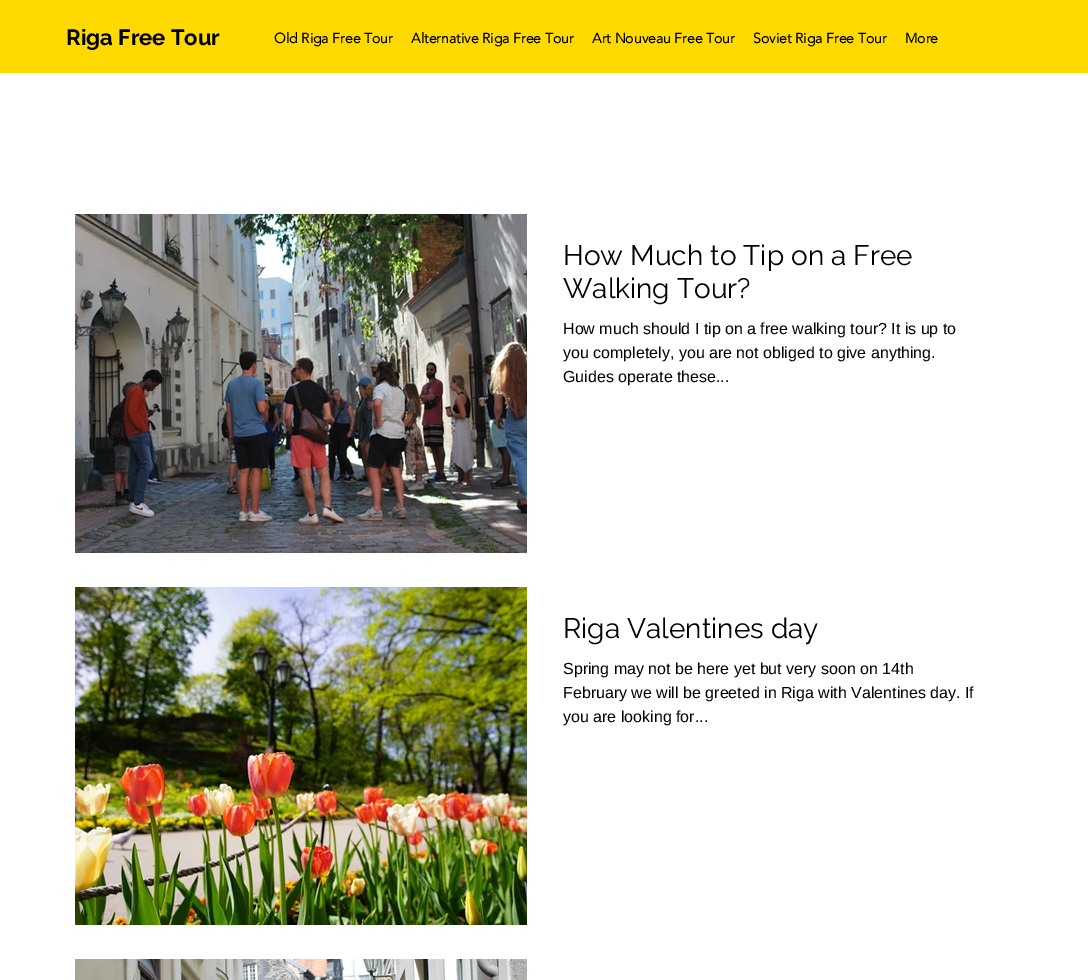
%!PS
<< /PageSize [1088 980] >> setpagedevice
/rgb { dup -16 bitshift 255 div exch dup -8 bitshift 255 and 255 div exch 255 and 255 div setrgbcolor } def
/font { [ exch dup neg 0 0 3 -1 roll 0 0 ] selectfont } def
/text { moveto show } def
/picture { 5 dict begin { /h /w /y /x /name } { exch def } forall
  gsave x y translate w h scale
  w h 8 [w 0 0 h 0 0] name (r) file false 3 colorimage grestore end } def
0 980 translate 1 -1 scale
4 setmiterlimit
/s1 { /Raleway-Bold 22 font 16#000000 rgb } def
/s2 { /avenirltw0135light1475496-Bold 14 font 16#000000 rgb } def
/s3 { /Raleway-Regular 28 font 16#000000 rgb } def
/s4 { /LiberationSans-Regular 16 font 16#000000 rgb } def
16#FFFFFF rgb
0 0 1088 980 rectfill
16#FFD900 rgb
0 0 1088 73 rectfill
s1
(Riga Free Tour) 66 45 text
s2
(Old Riga Free Tour) 274 43 text
(Alternative Riga Free Tour) 411 43 text
(Art Nouveau Free Tour) 592 43 text
(Soviet Riga Free Tour) 753 43 text
(More) 905 43 text
(pic1.raw) 75 214 452 339 picture
s3
(How Much to Tip on a Free) 563 265 text
(Walking Tour?) 563 298 text
s4
(How much should I tip on a free walking tour? It is up to) 563 334 text
(you completely, you are not obliged to give anything.) 563 358 text
(Guides operate these...) 563 382 text
(pic2.raw) 75 587 452 338 picture
s3
(Riga Valentines day) 563 638 text
s4
(Spring may not be here yet but very soon on 14th) 563 674 text
(February we will be greeted in Riga with Valentines day. If) 563 698 text
(you are looking for...) 563 722 text
(pic3.raw) 75 959 3 21 picture
(pic4.raw) 78 959 449 21 picture
showpage
